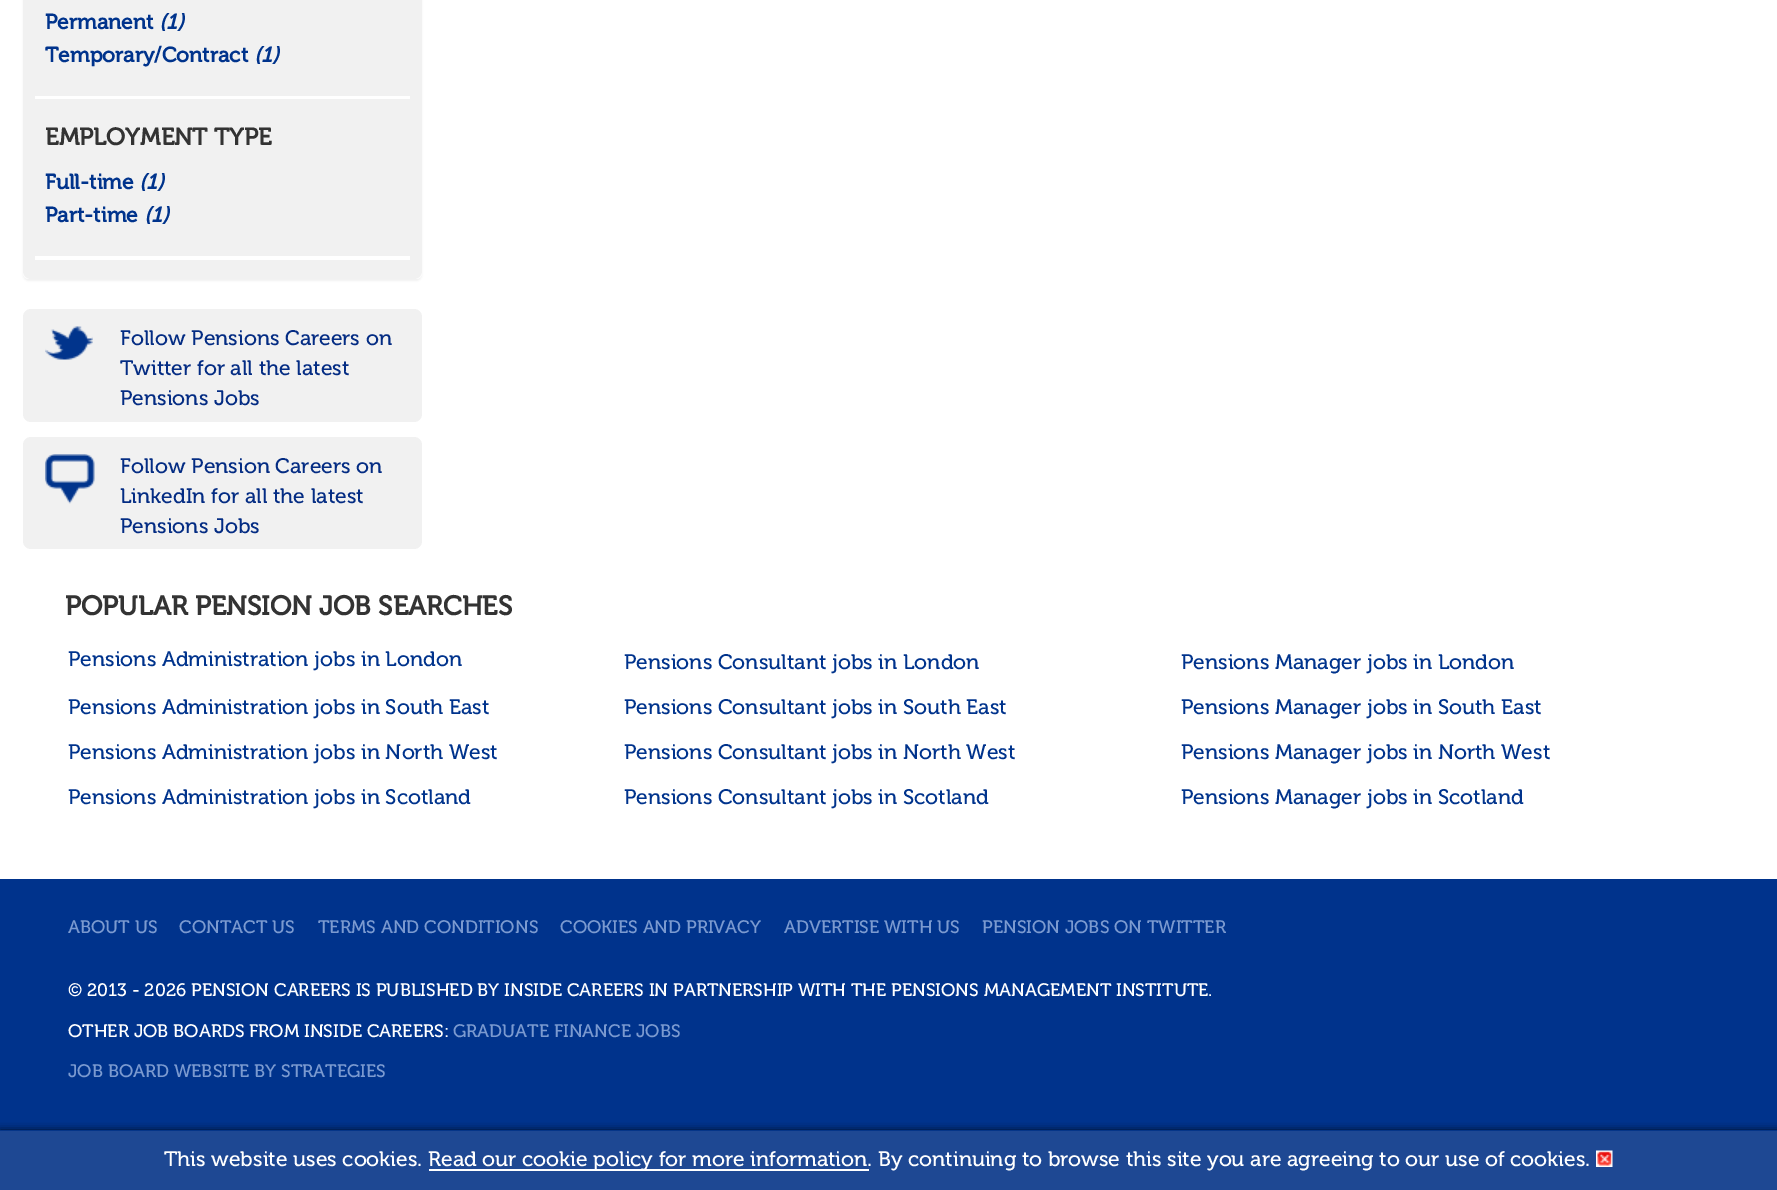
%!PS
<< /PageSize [1777 1190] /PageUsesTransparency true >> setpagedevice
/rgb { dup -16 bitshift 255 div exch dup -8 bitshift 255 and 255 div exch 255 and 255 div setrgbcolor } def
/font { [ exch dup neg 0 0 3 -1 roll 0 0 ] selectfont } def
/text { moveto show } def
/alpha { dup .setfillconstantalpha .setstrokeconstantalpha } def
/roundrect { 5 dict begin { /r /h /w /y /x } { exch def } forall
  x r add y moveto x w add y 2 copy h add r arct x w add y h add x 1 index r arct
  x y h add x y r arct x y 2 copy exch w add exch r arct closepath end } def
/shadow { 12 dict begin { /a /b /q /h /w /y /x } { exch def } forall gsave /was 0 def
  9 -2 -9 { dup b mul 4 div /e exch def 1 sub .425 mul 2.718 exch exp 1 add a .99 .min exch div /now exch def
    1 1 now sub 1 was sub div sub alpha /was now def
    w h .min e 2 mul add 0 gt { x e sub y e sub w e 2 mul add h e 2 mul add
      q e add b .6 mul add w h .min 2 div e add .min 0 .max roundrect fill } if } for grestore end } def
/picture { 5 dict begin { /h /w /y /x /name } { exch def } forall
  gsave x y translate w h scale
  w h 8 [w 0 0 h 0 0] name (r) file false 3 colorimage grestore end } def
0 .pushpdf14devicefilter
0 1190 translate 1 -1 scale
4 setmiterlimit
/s1 { /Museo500-Bold 21 font 16#00338C rgb } def
/s2 { /Museo500-BoldItalic 21 font 16#00338C rgb } def
/s3 { /Museo500-Bold 24 font 16#333333 rgb } def
/s4 { /Museo500-Regular 21 font 16#042C83 rgb } def
/s5 { /Museo500-Bold 27 font 16#333333 rgb } def
/s6 { /Museo500-Regular 21 font 16#00338C rgb } def
/s7 { /Museo500-Regular 18 font 16#7B9AD0 rgb } def
/s8 { /Museo500-Regular 18 font 16#FFFFFF rgb } def
/s9 { /Museo500-Regular 21 font 16#FFFFFF rgb } def
16#1E4893 rgb
0 0 1777 1190 rectfill
16#FFFFFF rgb
0 0 1777 879 rectfill
16#000000 rgb
23 -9 399 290 6 1 0.05 shadow
16#FFFFFF rgb
23 -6 moveto 422 -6 lineto 422 273 lineto 422 276.5 419.5 279 416 279 curveto 29 279 lineto 25.5 279 23 276.5 23 273 curveto closepath fill
16#F1F1F1 rgb
23 -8 moveto 414 -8 lineto 418.5 -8 422 -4.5 422 0 curveto 422 271 lineto 422 275.5 418.5 279 414 279 curveto 31 279 lineto 26.5 279 23 275.5 23 271 curveto closepath fill
16#FFFFFF rgb
35 96 375 3 rectfill
s1
(Permanent) 45 29 text
s2
(\(1\)) 159 29 text
s1
(Temporary/Contract) 45 62 text
s2
(\(1\)) 254 62 text
16#FFFFFF rgb
35 256 375 4 rectfill
s3
(EMPLOYMENT TYPE) 45 145 text
s1
(Full-time) 45 189 text
s2
(\(1\)) 139 189 text
s1
(Part-time) 45 222 text
s2
(\(1\)) 144 222 text
16#F1F1F1 rgb
23 309 399 113 8 roundrect fill
(pic1.raw) 45 326 48 34 picture
s4
(Follow Pensions Careers on) 120 345 text
(Twitter for all the latest) 120 375 text
(Pensions Jobs) 120 405 text
16#F1F1F1 rgb
23 437 399 112 8 roundrect fill
(pic2.raw) 45 454 50 50 picture
s4
(Follow Pension Careers on) 120 473 text
(LinkedIn for all the latest) 120 503 text
(Pensions Jobs) 120 533 text
s5
(POPULAR PENSION JOB SEARCHES) 65 615 text
s6
(Pensions Administration jobs in London) 68 666 text
(Pensions Consultant jobs in London) 624 669 text
(Pensions Manager jobs in London) 1181 669 text
(Pensions Administration jobs in South East) 68 714 text
(Pensions Consultant jobs in South East) 624 714 text
(Pensions Manager jobs in South East) 1181 714 text
(Pensions Administration jobs in North West) 68 759 text
(Pensions Consultant jobs in North West) 624 759 text
(Pensions Manager jobs in North West) 1181 759 text
(Pensions Administration jobs in Scotland) 68 804 text
(Pensions Consultant jobs in Scotland) 624 804 text
(Pensions Manager jobs in Scotland) 1181 804 text
0 879 1777 251 rectfill
16#053588 rgb
0 1130 1777 1 rectfill
s7
(ABOUT US) 68 933 text
(CONTACT US) 179 933 text
(TERMS AND CONDITIONS) 318 933 text
(COOKIES AND PRIVACY) 560 933 text
(ADVERTISE WITH US) 784 933 text
(PENSION JOBS ON TWITTER) 982 933 text
s8
(© 2013 - 2026 PENSION CAREERS IS PUBLISHED BY INSIDE CAREERS IN PARTNERSHIP WITH THE PENSIONS MANAGEMENT INSTITUTE.) 68 996 text
(OTHER JOB BOARDS FROM INSIDE CAREERS:) 68 1037 text
s7
(GRADUATE FINANCE JOBS) 453 1037 text
(JOB BOARD WEBSITE BY STRATEGIES) 68 1077 text
gsave
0 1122 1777 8 rectclip
16#000000 rgb
0 1130 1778 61 0 4 0.75 shadow
grestore
s9
(This website uses cookies.) 164 1166 text
429 1169 440 2 rectfill
(Read our cookie policy for more information. By continuing to browse this site you are agreeing to our use of cookies.) 428 1166 text
(pic3.raw) 1596 1150 17 17 picture
.poppdf14devicefilter showpage
